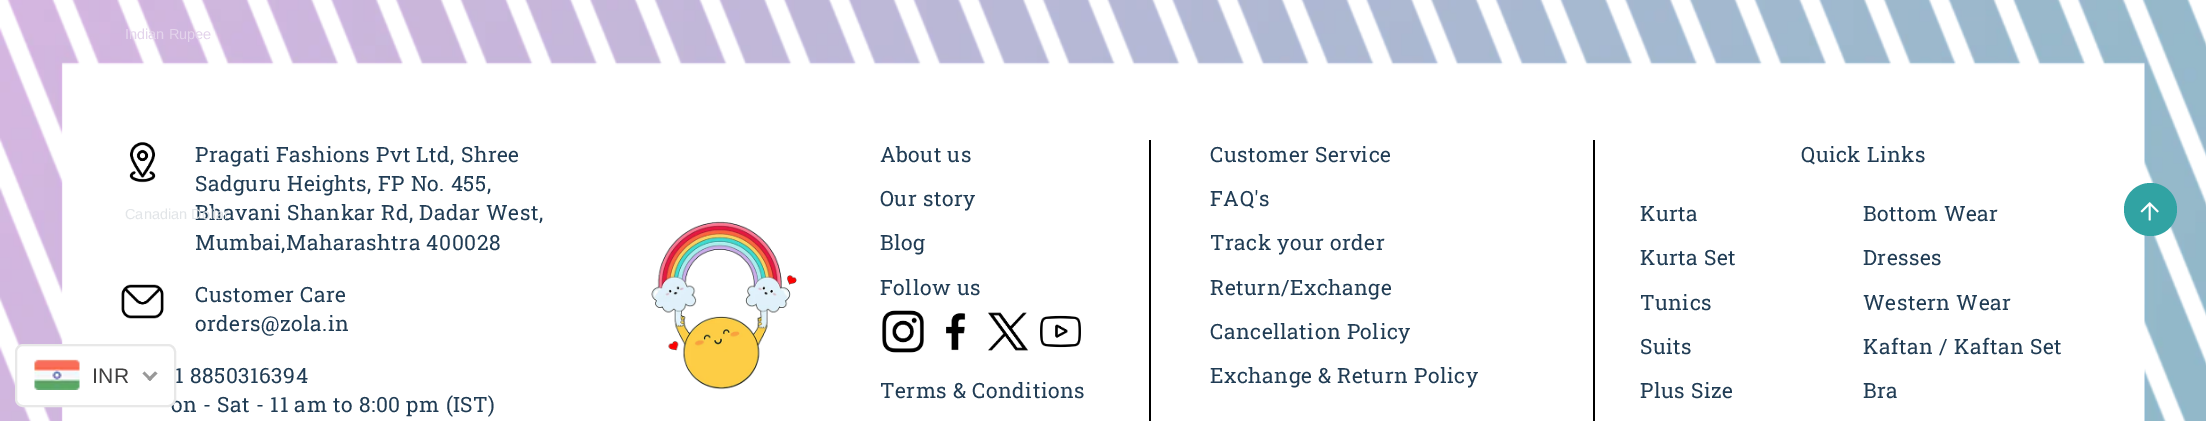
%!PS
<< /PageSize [2206 421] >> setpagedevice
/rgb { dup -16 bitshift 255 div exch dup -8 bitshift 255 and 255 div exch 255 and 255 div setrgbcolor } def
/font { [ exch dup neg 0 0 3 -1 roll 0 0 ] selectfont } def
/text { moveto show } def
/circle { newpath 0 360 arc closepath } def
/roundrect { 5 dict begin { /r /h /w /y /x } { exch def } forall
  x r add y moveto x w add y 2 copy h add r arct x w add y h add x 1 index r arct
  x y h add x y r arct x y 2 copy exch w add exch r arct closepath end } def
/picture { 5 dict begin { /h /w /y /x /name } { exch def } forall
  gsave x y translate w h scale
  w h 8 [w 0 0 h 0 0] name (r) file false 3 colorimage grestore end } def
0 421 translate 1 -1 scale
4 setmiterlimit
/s1 { /LiberationSans-Regular 14.5 font 16#E4D4EC rgb } def
/s2 { /LiberationSans-Regular 14.5 font 16#E2E5E8 rgb } def
16#FFFFFF rgb
0 0 2206 421 rectfill
(pic2.raw) 0 0 2206 421 picture
/RobotoSlab-Regular 21 font
16#203C54 rgb
175 383 moveto 0.5 0 (1 8850316394) ashow
171 412 moveto 0.5 0 (on - Sat - 11 am to 8:00 pm \(IST\)) ashow
16#FFFFFF rgb
16 345 159 61 7 roundrect gsave fill grestore
16#E8E8E8 rgb
2 setlinewidth
stroke
s1
(Indian Rupee) 125 39 text
/RobotoSlab-Regular 21 font
16#203C54 rgb
195 220 moveto 0.5 0 (Bhavani Shankar Rd, Dadar West,) ashow
s2
(Canadian Dollar) 125 219 text
(pic1.raw) 34 359 46 31 picture
/LiberationSans-Regular 21 font
16#403F3F rgb
92 383 moveto 0.5 0 (INR) ashow
16#999999 rgb
155 371.5 moveto 157.5 373.5 lineto 150 381 lineto 147.5 379 lineto closepath fill
144.5 371.5 moveto 152 379 lineto 150 381 lineto 142.5 373.5 lineto closepath fill
(pic3.raw) 129 142 27 41 picture
/RobotoSlab-Regular 21 font
16#203C54 rgb
195 162 moveto 0.5 0 (Pragati Fashions Pvt Ltd, Shree) ashow
195 191 moveto 0.5 0 (Sadguru Heights, FP No. 455,) ashow
195 250 moveto 0.5 0 (Mumbai,Maharashtra 400028) ashow
(pic4.raw) 121 284 43 35 picture
195 302 moveto 0.5 0 (Customer Care) ashow
195 331 moveto 0.5 0 (orders@zola.in) ashow
(pic5.raw) 651 221 146 169 picture
880 162 moveto 0.5 0 (About us) ashow
880 206 moveto 0.5 0 (Our story) ashow
880 250 moveto 0.5 0 (Blog) ashow
880 295 moveto 0.5 0 (Follow us) ashow
(pic6.raw) 882 310 42 43 picture
(pic7.raw) 946 313 20 38 picture
(pic8.raw) 988 312 41 39 picture
(pic9.raw) 1040 315 41 33 picture
880 398 moveto 0.5 0 (Terms & Conditions) ashow
16#000000 rgb
1593 140 2 281 rectfill
1149 140 2 281 rectfill
16#203C54 rgb
1210 162 moveto 0.5 0 (Customer Service) ashow
1210 206 moveto 0.5 0 (FAQ's) ashow
1210 250 moveto 0.5 0 (Track your order) ashow
1210 295 moveto 0.5 0 (Return/Exchange) ashow
1210 339 moveto 0.5 0 (Cancellation Policy) ashow
1210 383 moveto 0.5 0 (Exchange & Return Policy) ashow
1801 162 moveto 0.5 0 (Quick Links) ashow
1640 221 moveto 0.5 0 (Kurta) ashow
1863 221 moveto 0.5 0 (Bottom Wear) ashow
1640 265 moveto 0.5 0 (Kurta Set) ashow
1863 265 moveto 0.5 0 (Dresses) ashow
1640 310 moveto 0.5 0 (Tunics) ashow
1863 310 moveto 0.5 0 (Western Wear) ashow
1640 354 moveto 0.5 0 (Suits) ashow
1863 354 moveto 0.5 0 (Kaftan / Kaftan Set) ashow
1640 398 moveto 0.5 0 (Plus Size) ashow
1863 398 moveto 0.5 0 (Bra) ashow
16#31A3A3 rgb
2150.5 209.5 26.5 circle fill
(pic10.raw) 2140 202 19 19 picture
showpage
